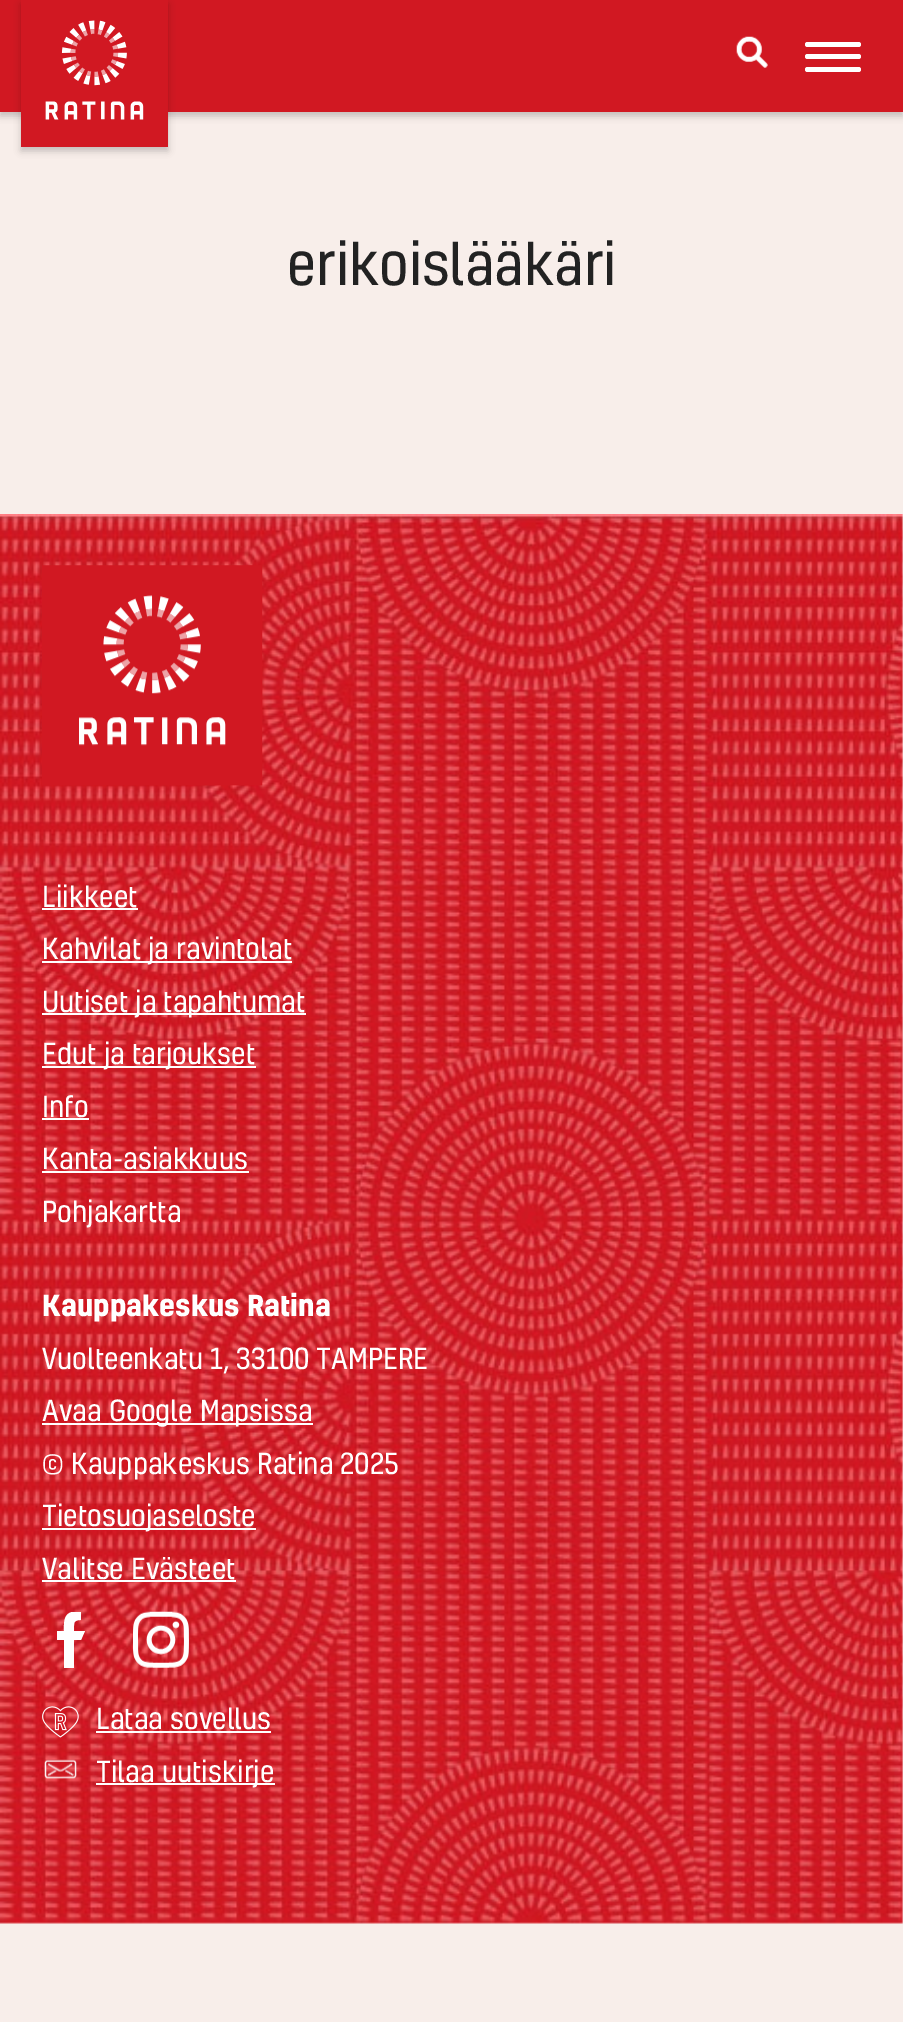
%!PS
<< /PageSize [903 2022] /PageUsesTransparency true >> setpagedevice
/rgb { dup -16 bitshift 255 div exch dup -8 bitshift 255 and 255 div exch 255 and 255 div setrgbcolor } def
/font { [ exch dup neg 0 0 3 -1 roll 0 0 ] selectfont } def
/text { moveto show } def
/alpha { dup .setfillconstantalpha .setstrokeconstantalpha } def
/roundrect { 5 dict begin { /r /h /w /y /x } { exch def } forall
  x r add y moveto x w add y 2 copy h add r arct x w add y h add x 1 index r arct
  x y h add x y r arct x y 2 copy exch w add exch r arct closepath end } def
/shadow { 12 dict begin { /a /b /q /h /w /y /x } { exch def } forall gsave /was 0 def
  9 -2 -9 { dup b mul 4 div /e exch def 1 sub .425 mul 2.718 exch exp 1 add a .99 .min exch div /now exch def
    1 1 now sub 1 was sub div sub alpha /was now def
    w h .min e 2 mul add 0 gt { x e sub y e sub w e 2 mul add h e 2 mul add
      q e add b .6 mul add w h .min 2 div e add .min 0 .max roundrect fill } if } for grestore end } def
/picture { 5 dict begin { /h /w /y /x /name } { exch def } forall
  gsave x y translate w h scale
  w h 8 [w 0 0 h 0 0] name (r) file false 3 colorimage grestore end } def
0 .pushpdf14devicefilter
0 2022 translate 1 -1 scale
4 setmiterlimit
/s1 { /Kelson-Regular 56 font 16#222222 rgb } def
/s2 { /Kelson-Regular 28 font 16#FFFFFF rgb } def
/s3 { /Kelson-Bold 28 font 16#FFFFFF rgb } def
16#F8EEEA rgb
0 0 903 2022 rectfill
16#000000 rgb
0 4 903 112 0 3.5 0.2 shadow
16#D11822 rgb
0 0 903 112 rectfill
gsave
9 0 moveto 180 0 lineto 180 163 lineto 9 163 lineto closepath 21 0 moveto 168 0 lineto 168 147 lineto 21 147 lineto closepath eoclip newpath
16#000000 rgb
21 4 147 147 0 3.5 0.2 shadow
grestore
(pic1.raw) 21 20 147 127 picture
(pic2.raw) 736 36 32 32 picture
16#FFFFFF rgb
805 54 56 5 2.5 roundrect fill
805 42 56 5 2.5 roundrect fill
805 67 56 5 2.5 roundrect fill
s1
(erikoislääkäri) 287 285 text
(pic3.raw) 0 514 903 1410 picture
(pic4.raw) 42 565 221 221 picture
s2
(Liikkeet) 42 907 text
42 908 96 2 rectfill
42 961 250 2 rectfill
(Kahvilat ja ravintolat) 42 959 text
42 1013 264 2 rectfill
(Uutiset ja tapahtumat) 42 1012 text
42 1066 214 2 rectfill
(Edut ja tarjoukset) 42 1064 text
(Info) 42 1117 text
42 1118 47 2 rectfill
(Kanta-asiakkuus) 42 1169 text
42 1171 207 2 rectfill
(Pohjakartta) 42 1222 text
s3
(Kauppakeskus Ratina) 42 1316 text
s2
(Vuolteenkatu 1, 33100 TAMPERE) 42 1369 text
42 1423 271 2 rectfill
(Avaa Google Mapsissa) 42 1421 text
(© Kauppakeskus Ratina 2025) 42 1474 text
42 1528 214 2 rectfill
(Tietosuojaseloste) 42 1526 text
(Valitse Evästeet) 42 1579 text
42 1580 194 2 rectfill
74 1631 moveto 74 1623 73 1620 81 1620 curveto 81 1612 lineto 72 1612 lineto 63 1614 64 1624 64 1631 curveto 57 1631 lineto 57 1640 lineto 64 1640 lineto 64 1668 lineto 74 1668 lineto 74 1640 lineto 81 1640 lineto 85 1631 lineto closepath fill
(pic5.raw) 133 1611 56 57 picture
(pic6.raw) 42 1706 37 32 picture
(Lataa sovellus) 96 1729 text
96 1731 175 2 rectfill
(pic7.raw) 44 1759 33 20 picture
96 1783 179 2 rectfill
(Tilaa uutiskirje) 96 1782 text
.poppdf14devicefilter showpage
